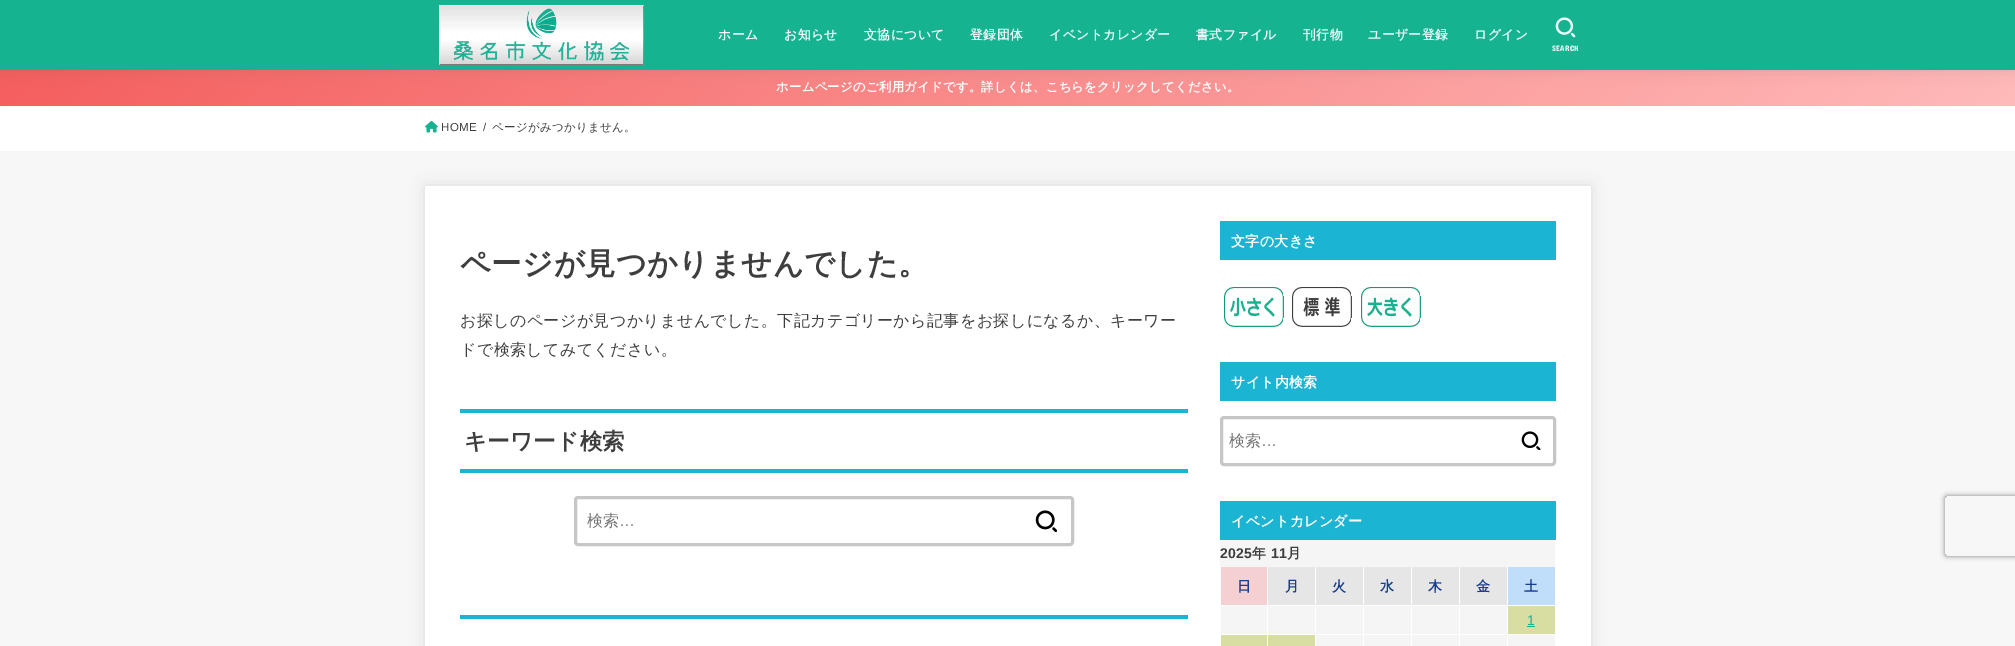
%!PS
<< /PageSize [2015 646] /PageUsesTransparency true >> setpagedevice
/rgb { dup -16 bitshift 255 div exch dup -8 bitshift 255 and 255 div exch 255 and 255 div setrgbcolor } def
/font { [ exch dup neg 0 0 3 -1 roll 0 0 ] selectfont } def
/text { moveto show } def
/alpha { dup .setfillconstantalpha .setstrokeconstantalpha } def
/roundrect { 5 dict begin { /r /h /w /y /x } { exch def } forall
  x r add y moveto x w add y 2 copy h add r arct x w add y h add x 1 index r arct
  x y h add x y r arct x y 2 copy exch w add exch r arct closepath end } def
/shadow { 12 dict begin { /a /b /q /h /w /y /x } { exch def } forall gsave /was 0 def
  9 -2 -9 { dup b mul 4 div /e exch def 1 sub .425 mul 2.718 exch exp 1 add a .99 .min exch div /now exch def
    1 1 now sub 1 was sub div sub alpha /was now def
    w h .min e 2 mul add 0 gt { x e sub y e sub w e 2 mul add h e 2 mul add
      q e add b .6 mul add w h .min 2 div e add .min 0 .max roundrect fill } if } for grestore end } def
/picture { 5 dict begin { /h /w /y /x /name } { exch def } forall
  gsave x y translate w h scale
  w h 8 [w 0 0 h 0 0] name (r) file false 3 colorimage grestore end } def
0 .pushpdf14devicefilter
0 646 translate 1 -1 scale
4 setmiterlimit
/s1 { /WenQuanYiZenHei-Medium 16 font 16#757575 rgb } def
/s2 { /LiberationSans-Regular 16 font 16#757575 rgb } def
16#F7F7F7 rgb
0 0 2015 646 rectfill
gsave 0 70 moveto 2015 70 lineto 2015 106 lineto 0 106 lineto closepath clip newpath
<< /ShadingType 2 /ColorSpace /DeviceRGB /Coords [495 -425 1520 601] /Extend [true true] /Function << /FunctionType 2 /Domain [0 1] /C0 [0.961 0.369 0.369] /C1 [1 0.729 0.729] /N 1 >> >> shfill grestore
16#666666 rgb
0 0 2015 70 0 7.5 0.2 shadow
16#16B391 rgb
0 0 2015 70 rectfill
(pic1.raw) 439 5 205 60 picture
/WenQuanYiZenHei-Bold 12.75 font
16#EDF9FC rgb
718 39 moveto 0.5 0 (ホーム) ashow
784 39 moveto 0.5 0 (お知らせ) ashow
864 39 moveto 0.5 0 (文協について) ashow
970 39 moveto 0.5 0 (登録団体) ashow
1049 39 moveto 0.5 0 (イベントカレンダー) ashow
1196 39 moveto 0.5 0 (書式ファイル) ashow
1303 39 moveto 0.5 0 (刊行物) ashow
1368 39 moveto 0.5 0 (ユーザー登録) ashow
1474 39 moveto 0.5 0 (ログイン) ashow
(pic2.raw) 1555 17 21 21 picture
/ConcertOne-Regular 8 font
1552 51 moveto 0.25 0 (SEARCH) ashow
/WenQuanYiZenHei-Bold 12.35 font
16#FFFFFF rgb
776 91 moveto 0.3 0 (ホームページのご利用ガイドです。詳しくは、こちらをクリックしてください。) ashow
0 106 2015 45 rectfill
(pic3.raw) 425 120 13 13 picture
/LiberationSans-Regular 11.5 font
16#3E3E3E rgb
441 131 moveto 0.25 0 (HOME) ashow
483 131 moveto 0.25 0 (/) ashow
/WenQuanYiZenHei-Medium 11.5 font
492 131 moveto 0.25 0 (ページがみつかりません。) ashow
16#666666 rgb
425 186 1166 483 0 7.5 0.2 shadow
16#FFFFFF rgb
425 186 1166 460 rectfill
/WenQuanYiZenHei-Bold 30.4 font
16#3E3E3E rgb
460 274 moveto 0.3 0 (ページが見つかりませんでした。) ashow
/WenQuanYiZenHei-Medium 16 font
460 326 moveto 0.4 0 (お探しのページが見つかりませんでした。下記カテゴリーから記事をお探しになるか、キーワー) ashow
460 355 moveto 0.4 0 (ドで検索してみてください。) ashow
16#1BB4D3 rgb
460 409 728 4 rectfill
460 469 728 4 rectfill
/WenQuanYiZenHei-Bold 22.5 font
16#3E3E3E rgb
464 449 moveto 0.3 0 (キーワード検索) ashow
16#C6C6C6 rgb
3 setlinewidth
575.5 497.5 497 47 2.5 roundrect stroke
s1
(検索) 587 526 text
s2
(…) 619 526 text
(pic4.raw) 1035 510 22 22 picture
16#1BB4D3 rgb
460 615 728 4 rectfill
1220 221 336 39 rectfill
/WenQuanYiZenHei-Bold 14 font
16#FFFFFF rgb
1231 246 moveto 0.3 0 (文字の大きさ) ashow
(pic5.raw) 1224 287 60 40 picture
(pic6.raw) 1292 287 60 40 picture
(pic7.raw) 1361 287 60 40 picture
16#1BB4D3 rgb
1220 362 336 39 rectfill
16#FFFFFF rgb
1231 387 moveto 0.3 0 (サイト内検索) ashow
16#C6C6C6 rgb
1221.5 417.5 333 47 2.5 roundrect stroke
s1
(検索) 1229 446 text
s2
(…) 1261 446 text
(pic8.raw) 1521 431 20 19 picture
16#1BB4D3 rgb
1220 501 336 39 rectfill
/WenQuanYiZenHei-Bold 14 font
16#FFFFFF rgb
1231 526 moveto 0.3 0 (イベントカレンダー) ashow
16#F5F5F5 rgb
1220 541 335 105 rectfill
/LiberationSans-Bold 14 font
16#3E3E3E rgb
1220 558 moveto 0.3 0 (2025) ashow
/WenQuanYiZenHei-Bold 14 font
1252 558 moveto 0.3 0 (年) ashow
/LiberationSans-Bold 14 font
1271 558 moveto 0.3 0 (11) ashow
/WenQuanYiZenHei-Bold 14 font
1287 558 moveto 0.3 0 (月) ashow
16#F5D0D3 rgb
1221 567 46 38 rectfill
16#FFFFFF rgb
1507 634 1 12 rectfill
1507 634 49 1 rectfill
1507 605 1 30 rectfill
1507 605 49 1 rectfill
1507 567 1 39 rectfill
1459 634 1 12 rectfill
1459 634 49 1 rectfill
1459 605 1 30 rectfill
1459 605 49 1 rectfill
1459 567 1 39 rectfill
1411 634 1 12 rectfill
1411 634 49 1 rectfill
1411 605 1 30 rectfill
1411 605 49 1 rectfill
1411 567 1 39 rectfill
1363 634 1 12 rectfill
1363 634 49 1 rectfill
1363 605 1 30 rectfill
1363 605 49 1 rectfill
1363 567 1 39 rectfill
1315 634 1 12 rectfill
1315 634 49 1 rectfill
1315 605 1 30 rectfill
1315 605 49 1 rectfill
1315 567 1 39 rectfill
1267 634 1 12 rectfill
1267 634 49 1 rectfill
1267 605 1 30 rectfill
1267 605 49 1 rectfill
1267 567 1 39 rectfill
1220 634 1 12 rectfill
1220 634 48 1 rectfill
1220 605 1 30 rectfill
1220 605 48 1 rectfill
1220 567 1 39 rectfill
16#193F8A rgb
1237 591 moveto 0.3 0 (日) ashow
16#E6E6E6 rgb
1268 567 47 38 rectfill
16#193F8A rgb
1285 591 moveto 0.3 0 (月) ashow
16#E6E6E6 rgb
1316 567 47 38 rectfill
16#193F8A rgb
1332 591 moveto 0.3 0 (火) ashow
16#E6E6E6 rgb
1364 567 47 38 rectfill
16#193F8A rgb
1380 591 moveto 0.3 0 (水) ashow
16#E6E6E6 rgb
1412 567 47 38 rectfill
16#193F8A rgb
1428 591 moveto 0.3 0 (木) ashow
16#E6E6E6 rgb
1460 567 47 38 rectfill
16#193F8A rgb
1476 591 moveto 0.3 0 (金) ashow
16#C0DDF9 rgb
1508 567 47 38 rectfill
16#193F8A rgb
1524 591 moveto 0.3 0 (土) ashow
16#D8DDA1 rgb
1508 606 47 28 rectfill
/LiberationSans-Regular 14 font
16#16B391 rgb
1527 625 moveto 0.3 0 (1) ashow
1527 626 8 1 rectfill
16#D8DDA1 rgb
1221 635 46 11 rectfill
1268 635 47 11 rectfill
gsave
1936 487 moveto 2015 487 lineto 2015 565 lineto 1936 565 lineto closepath 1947 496 moveto 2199 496 lineto 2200 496 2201 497 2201 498 curveto 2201 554 lineto 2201 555 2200 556 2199 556 curveto 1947 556 lineto 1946 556 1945 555 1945 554 curveto 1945 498 lineto 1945 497 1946 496 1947 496 curveto closepath eoclip newpath
16#808080 rgb
1945 496 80 60 2 2.5 1 shadow
grestore
.poppdf14devicefilter showpage
